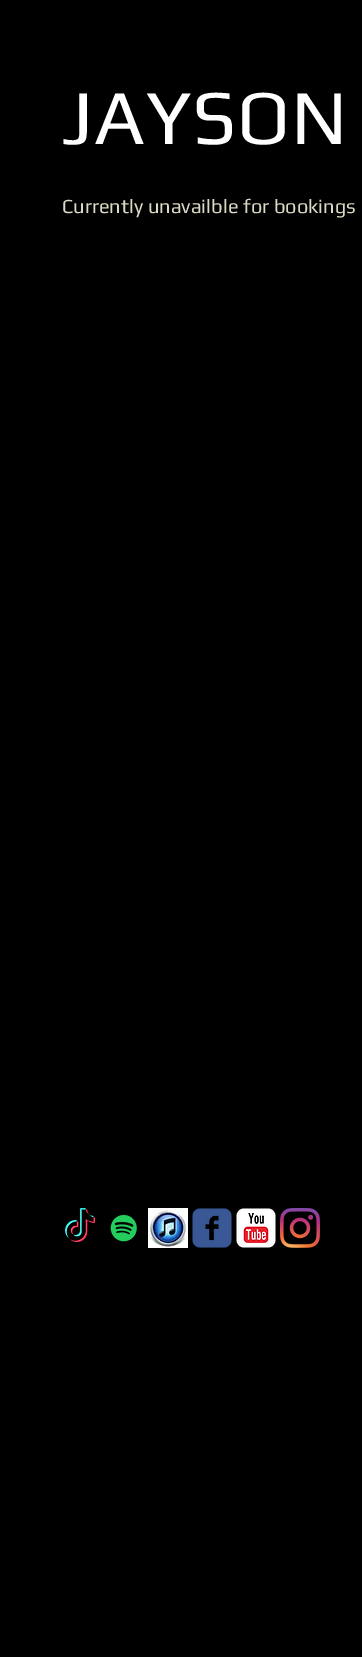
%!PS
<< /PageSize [362 1657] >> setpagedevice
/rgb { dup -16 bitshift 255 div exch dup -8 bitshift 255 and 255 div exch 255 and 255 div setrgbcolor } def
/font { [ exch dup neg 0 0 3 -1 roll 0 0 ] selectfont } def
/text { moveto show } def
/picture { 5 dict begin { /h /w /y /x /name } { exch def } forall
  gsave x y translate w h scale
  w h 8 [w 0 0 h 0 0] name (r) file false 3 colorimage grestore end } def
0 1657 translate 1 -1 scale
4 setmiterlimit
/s1 { /Play-Regular 20 font 16#DCD9C5 rgb } def
16#000000 rgb
0 0 362 1657 rectfill
/Play-Regular 78 font
16#FFFFFF rgb
62 144 moveto 0.75 0 (JAYSON) ashow
s1
(Currently unavailble for bookings) 62 213 text
(pic1.raw) 65 1208 31 35 picture
(pic2.raw) 110 1214 27 28 picture
(pic3.raw) 148 1208 40 40 picture
(pic4.raw) 192 1208 40 40 picture
(pic5.raw) 236 1208 40 40 picture
(pic6.raw) 280 1208 40 40 picture
showpage
